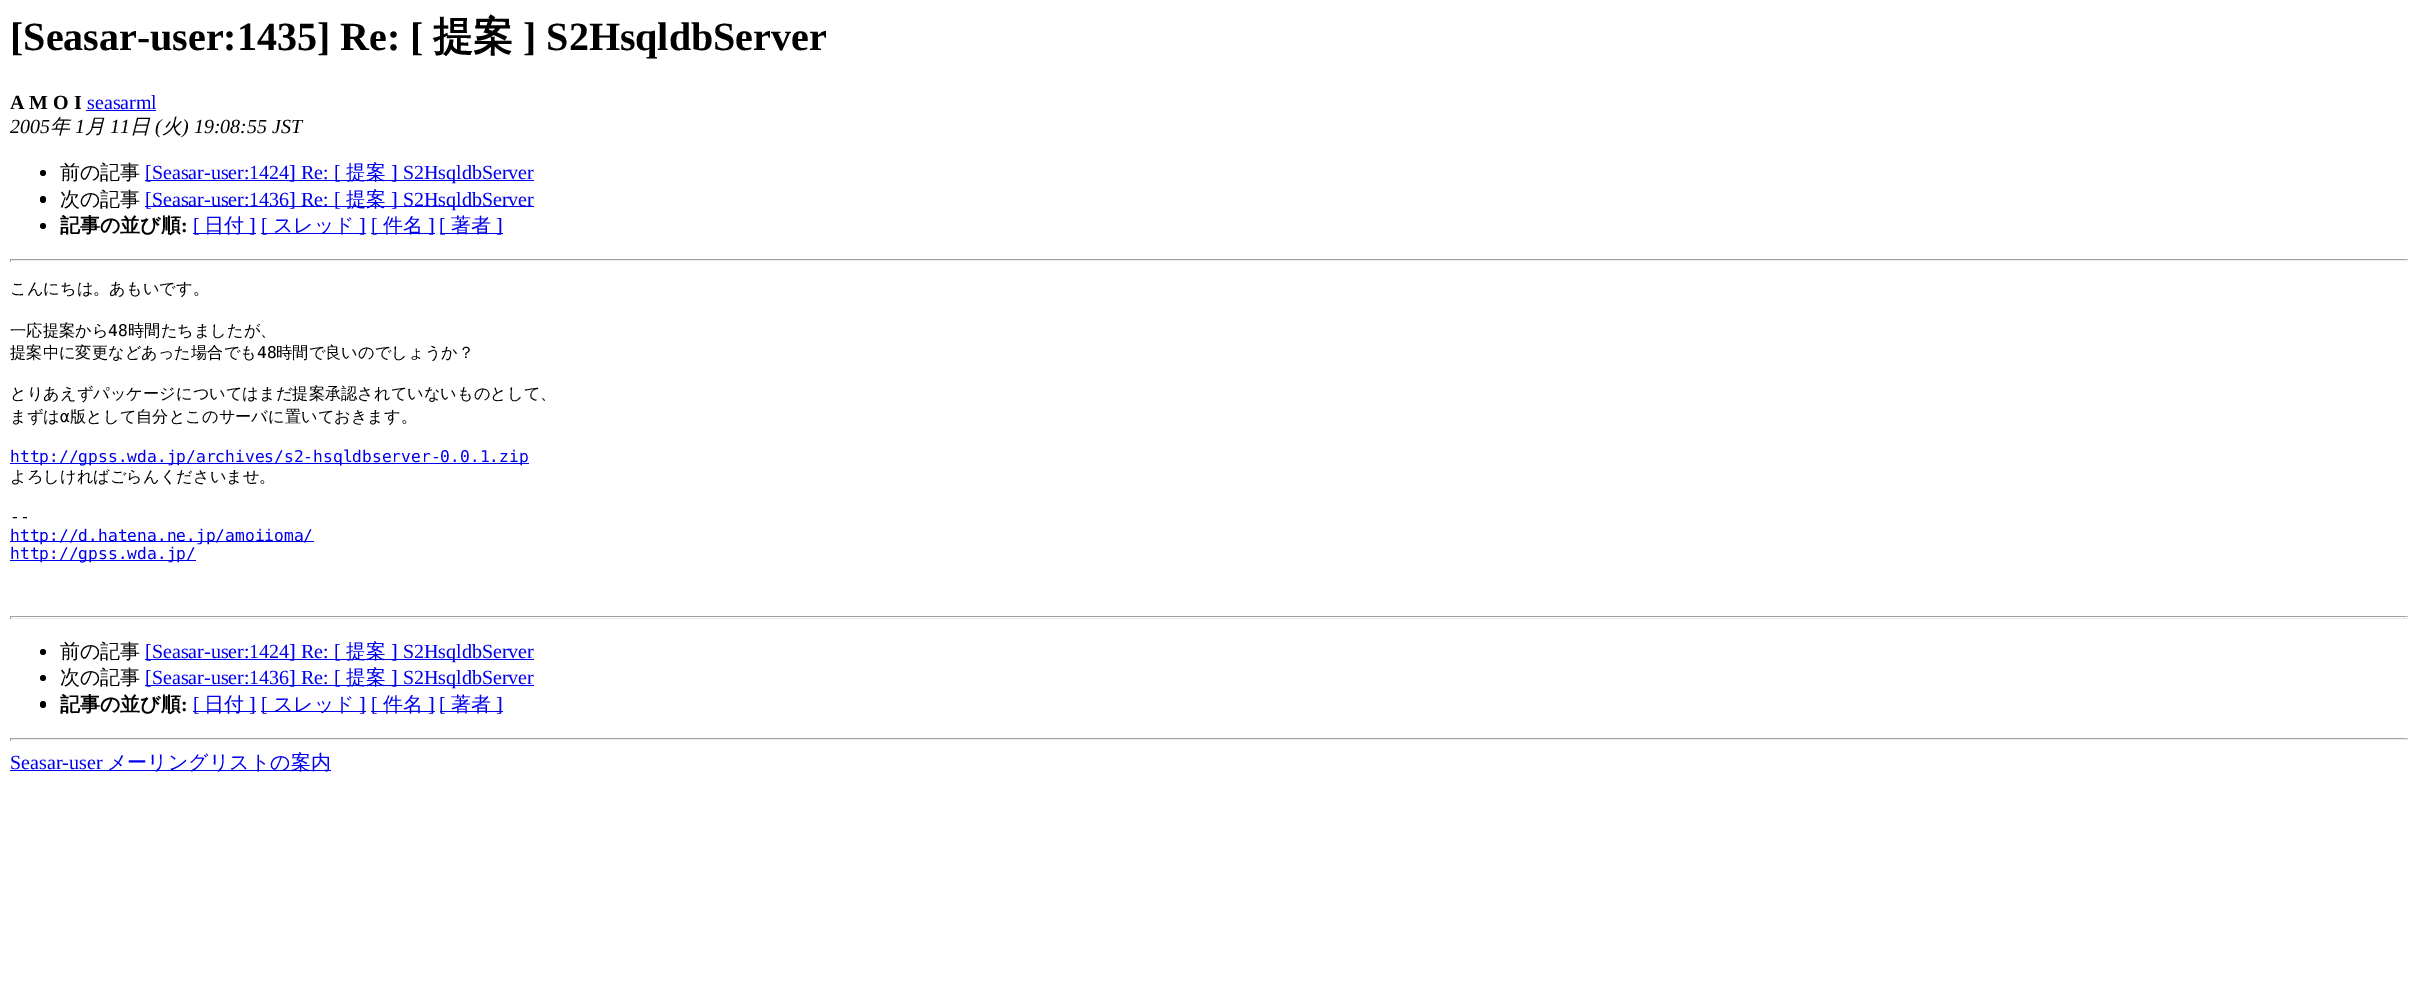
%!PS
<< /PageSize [2417 1003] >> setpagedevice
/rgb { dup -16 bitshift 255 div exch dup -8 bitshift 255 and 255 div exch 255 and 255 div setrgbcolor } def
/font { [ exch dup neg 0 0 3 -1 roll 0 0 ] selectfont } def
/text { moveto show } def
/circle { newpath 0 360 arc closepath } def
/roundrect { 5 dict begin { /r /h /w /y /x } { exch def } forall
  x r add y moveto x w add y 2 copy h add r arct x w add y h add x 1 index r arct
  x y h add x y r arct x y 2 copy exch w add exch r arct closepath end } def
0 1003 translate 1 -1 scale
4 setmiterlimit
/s1 { /LiberationSerif-Bold 40 font 16#000000 rgb } def
/s2 { /WenQuanYiZenHei-Bold 40 font 16#000000 rgb } def
/s3 { /LiberationSerif-Bold 20 font 16#000000 rgb } def
/s4 { /LiberationSerif-Regular 20 font 16#0000EE rgb } def
/s5 { /LiberationSerif-Italic 20 font 16#000000 rgb } def
/s6 { /WenQuanYiZenHei-MediumItalic 20 font 16#000000 rgb } def
/s7 { /WenQuanYiZenHei-Medium 20 font 16#000000 rgb } def
/s8 { /WenQuanYiZenHei-Medium 20 font 16#0000EE rgb } def
/s9 { /WenQuanYiZenHei-Bold 20 font 16#000000 rgb } def
/s10 { /WenQuanYiZenHei-Medium 16.25 font 16#000000 rgb } def
/s11 { /DejaVuSansMono-Regular 16.25 font 16#000000 rgb } def
/s12 { /DejaVuSansMono-Regular 16.25 font 16#0000EE rgb } def
16#FFFFFF rgb
0 0 2417 1003 rectfill
s1
([Seasar-user:1435] Re: [) 10 50 text
s2
(提案) 433 50 text
s1
(] S2HsqldbServer) 523 50 text
s3
(A M O I) 10 109 text
s4
(seasarml) 87 109 text
86 110 70 1 rectfill
s5
(2005) 10 133 text
s6
(年) 50 133 text
s5
(1) 75 133 text
s6
(月) 85 133 text
s5
(11) 110 133 text
s6
(日) 130 133 text
s5
(\() 155 133 text
s6
(火) 162 133 text
s5
(\) 19:08:55 JST) 182 133 text
43 173 3 circle fill
s7
(前の記事) 60 179 text
16#0000EE rgb
145 180 389 1 rectfill
s4
([Seasar-user:1424] Re: [) 145 179 text
s8
(提案) 346 179 text
s4
(] S2HsqldbServer) 391 179 text
16#000000 rgb
40 196 6 7 3 roundrect fill
s7
(次の記事) 60 206 text
16#0000EE rgb
145 206 389 1 rectfill
s4
([Seasar-user:1436] Re: [) 145 206 text
s8
(提案) 346 206 text
s4
(] S2HsqldbServer) 391 206 text
16#000000 rgb
43 226 3 circle fill
s9
(記事の並び順) 60 232 text
s3
(:) 181 232 text
16#0000EE rgb
193 233 63 1 rectfill
s4
([) 193 232 text
s8
(日付) 204 232 text
s4
(]) 249 232 text
261 233 105 1 rectfill
([) 261 232 text
s8
(スレッド) 273 232 text
s4
(]) 359 232 text
371 233 64 1 rectfill
([) 371 232 text
s8
(件名) 383 232 text
s4
(]) 428 232 text
440 233 63 1 rectfill
([) 439 232 text
s8
(著者) 451 232 text
s4
(]) 496 232 text
16#9F9F9F rgb
10 259 2398 1 rectfill
16#EEEEEE rgb
2406 259 1 3 rectfill
10 260 2398 1 rectfill
16#9F9F9F rgb
10 259 1 3 rectfill
s10
(こんにちは。あもいです。) 10 294 text
(一応提案から) 10 336 text
s11
(48) 108 336 text
s10
(時間たちましたが、) 128 336 text
(提案中に変更などあった場合でも) 10 358 text
s11
(48) 257 358 text
s10
(時間で良いのでしょうか？) 276 358 text
(とりあえずパッケージについてはまだ提案承認されていないものとして、) 10 399 text
(まずは) 10 422 text
s11
(α) 60 422 text
s10
(版として自分とこのサーバに置いておきます。) 70 422 text
16#0000EE rgb
10 463 519 1 rectfill
s12
(http://gpss.wda.jp/archives/s2-hsqldbserver-0.0.1.zip) 10 462 text
s10
(よろしければごらんくださいませ。) 10 482 text
s11
(--) 10 522 text
16#0000EE rgb
10 541 304 1 rectfill
(http://d.hatena.ne.jp/amoiioma/) 10 541 text
10 560 186 1 rectfill
(http://gpss.wda.jp/) 10 559 text
16#9F9F9F rgb
10 616 2398 1 rectfill
16#EEEEEE rgb
2406 616 1 3 rectfill
10 618 2398 1 rectfill
16#9F9F9F rgb
10 616 1 3 rectfill
16#000000 rgb
43 652 3 circle fill
s7
(前の記事) 60 658 text
16#0000EE rgb
145 659 389 1 rectfill
s4
([Seasar-user:1424] Re: [) 145 658 text
s8
(提案) 346 658 text
s4
(] S2HsqldbServer) 391 658 text
16#000000 rgb
43 678 3 circle fill
s7
(次の記事) 60 684 text
16#0000EE rgb
145 685 389 1 rectfill
s4
([Seasar-user:1436] Re: [) 145 684 text
s8
(提案) 346 684 text
s4
(] S2HsqldbServer) 391 684 text
16#000000 rgb
40 701 6 7 3 roundrect fill
s9
(記事の並び順) 60 711 text
s3
(:) 181 711 text
16#0000EE rgb
193 711 63 1 rectfill
s4
([) 193 711 text
s8
(日付) 204 711 text
s4
(]) 249 711 text
261 711 105 1 rectfill
([) 261 711 text
s8
(スレッド) 273 711 text
s4
(]) 359 711 text
371 711 64 1 rectfill
([) 371 711 text
s8
(件名) 383 711 text
s4
(]) 428 711 text
440 711 63 1 rectfill
([) 439 711 text
s8
(著者) 451 711 text
s4
(]) 496 711 text
16#9F9F9F rgb
10 738 2398 1 rectfill
16#EEEEEE rgb
2406 738 1 3 rectfill
10 739 2398 1 rectfill
16#9F9F9F rgb
10 738 1 3 rectfill
s4
(Seasar-user) 10 769 text
10 770 321 1 rectfill
s8
(メーリングリストの案内) 107 769 text
showpage
